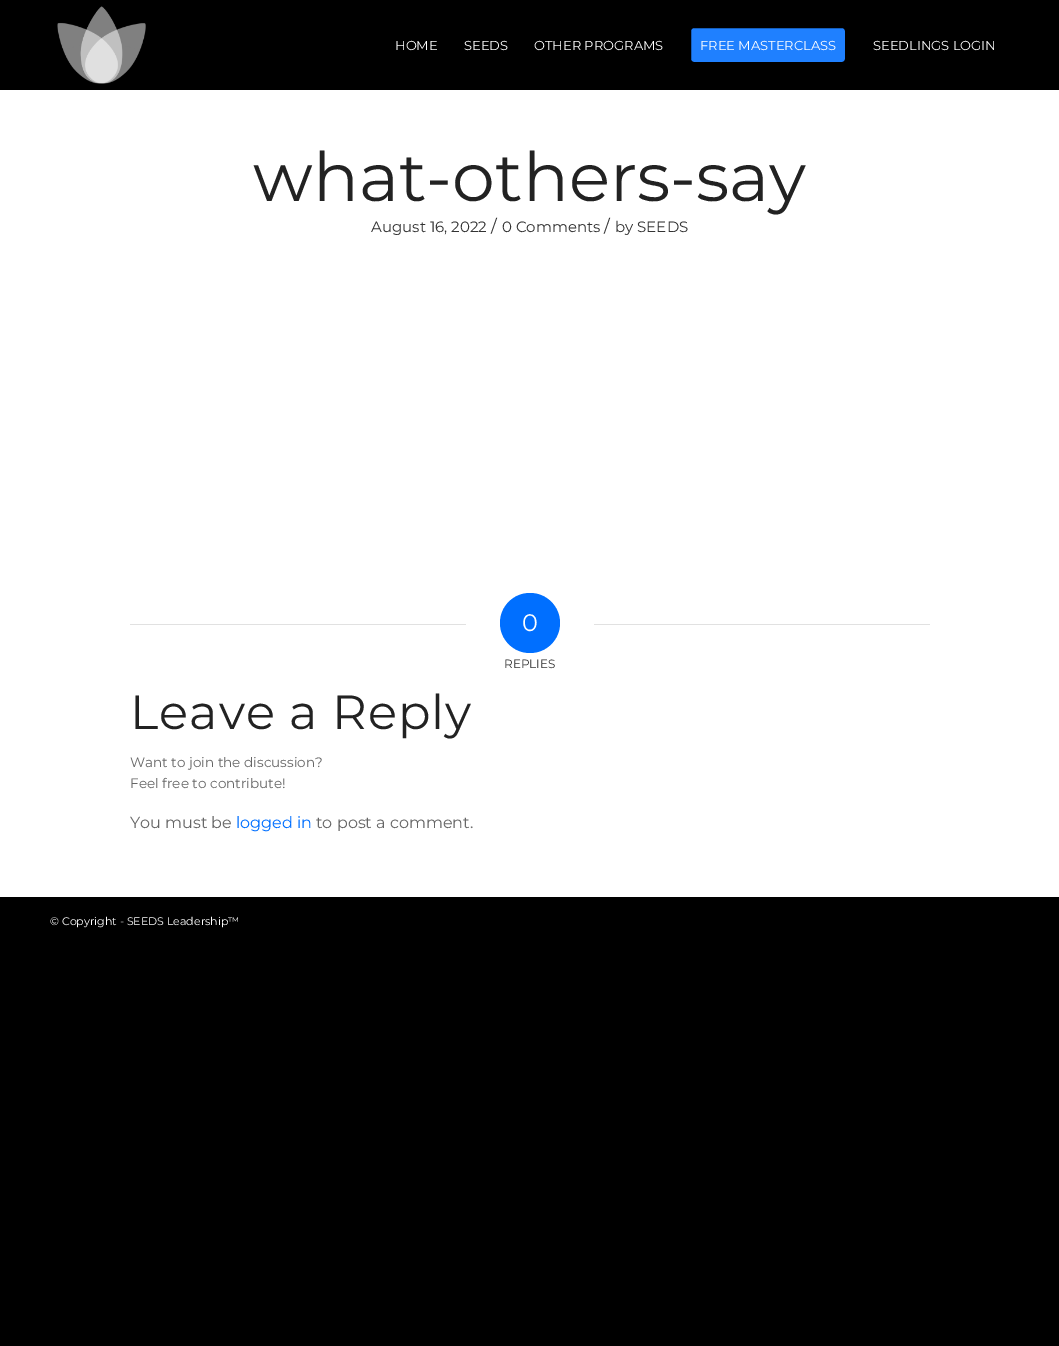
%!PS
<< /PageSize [1059 1346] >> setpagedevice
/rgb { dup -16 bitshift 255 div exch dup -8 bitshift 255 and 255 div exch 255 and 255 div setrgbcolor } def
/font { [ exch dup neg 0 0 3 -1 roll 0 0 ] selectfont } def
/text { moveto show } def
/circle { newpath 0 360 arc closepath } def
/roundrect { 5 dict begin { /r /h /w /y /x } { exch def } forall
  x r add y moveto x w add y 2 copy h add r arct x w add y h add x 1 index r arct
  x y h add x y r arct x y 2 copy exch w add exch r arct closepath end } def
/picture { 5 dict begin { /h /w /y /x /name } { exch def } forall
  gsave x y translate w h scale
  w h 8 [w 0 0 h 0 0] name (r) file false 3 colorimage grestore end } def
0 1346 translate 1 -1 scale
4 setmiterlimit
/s1 { /Montserrat-Thin 13 font 16#FFFFFF rgb } def
/s2 { /Montserrat-Thin 68 font 16#222222 rgb } def
/s3 { /Montserrat-Thin 15 font 16#333333 rgb } def
/s4 { /Montserrat-Thin 17 font 16#333333 rgb } def
/s5 { /Montserrat-Thin 24 font 16#FFFFFF rgb } def
/s6 { /Montserrat-Thin 12 font 16#333333 rgb } def
/s7 { /Montserrat-Thin 13.6 font 16#666666 rgb } def
/s8 { /Montserrat-Thin 16 font 16#666666 rgb } def
/s9 { /Montserrat-Thin 16 font 16#006FFF rgb } def
/s10 { /Montserrat-Thin 11 font 16#FFFFFF rgb } def
16#000000 rgb
0 0 1059 1346 rectfill
(pic1.raw) 57 6 89 78 picture
s1
(HOME) 395 50 text
(SEEDS) 464 50 text
(OTHER PROGRAMS) 534 50 text
16#1F80FF rgb
690 27 156 36 4 roundrect gsave fill grestore
16#000000 rgb
2 setlinewidth
stroke
s1
(FREE MASTERCLASS) 700 50 text
(SEEDLINGS LOGIN) 873 50 text
0 90 1059 807 rectfill
s2
(what-others-say) 253 201 text
s3
(August 16, 2022) 371 232 text
s4
(/) 491 232 text
s3
(0 Comments) 502 232 text
s4
(/) 604 232 text
s3
(by SEEDS) 615 232 text
16#E1E1E1 rgb
130 624 336 1 rectfill
16#006FFF rgb
530 623 30 circle fill
s5
(0) 522 631 text
16#E1E1E1 rgb
594 624 336 1 rectfill
s6
(REPLIES) 504 668 text
/Montserrat-Thin 48 font
16#222222 rgb
130 729 moveto 1 0 (Leave a Reply) ashow
s7
(Want to join the discussion?) 130 767 text
(Feel free to contribute!) 130 788 text
s8
(You must be) 130 828 text
s9
(logged in) 236 828 text
s8
(to post a comment.) 316 828 text
s10
(© Copyright - SEEDS Leadership™) 50 925 text
showpage
